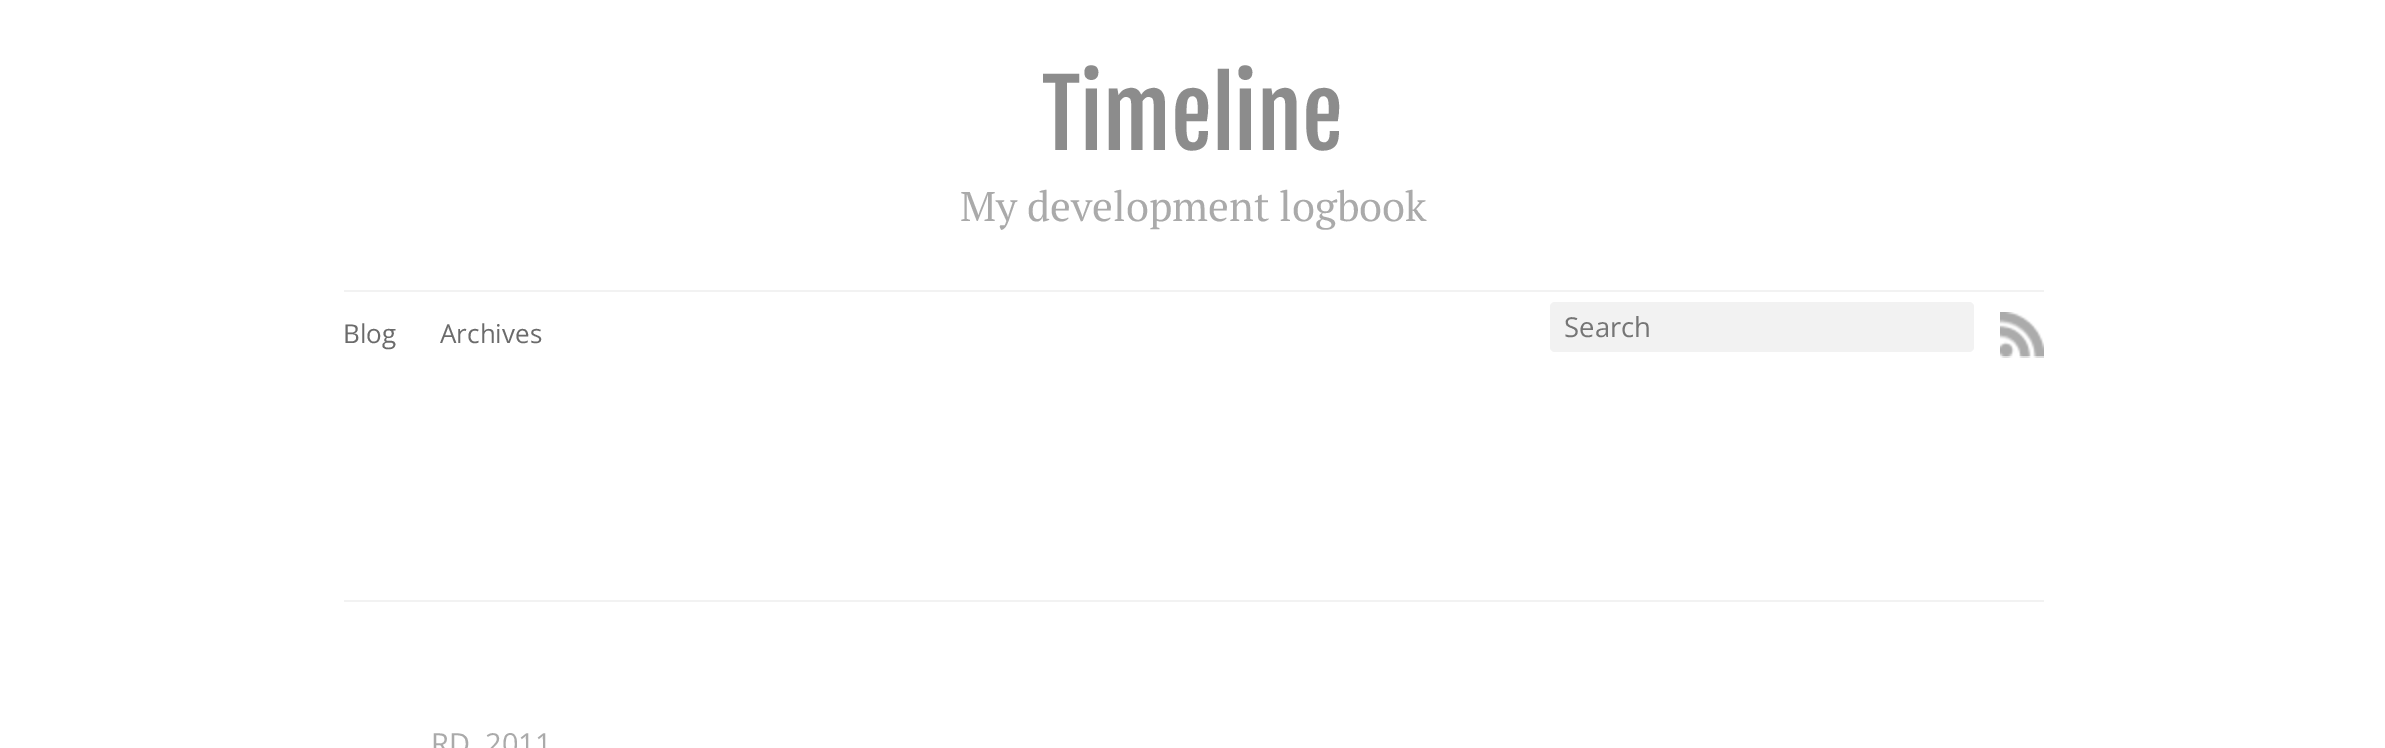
%!PS
<< /PageSize [2385 748] >> setpagedevice
/rgb { dup -16 bitshift 255 div exch dup -8 bitshift 255 and 255 div exch 255 and 255 div setrgbcolor } def
/font { [ exch dup neg 0 0 3 -1 roll 0 0 ] selectfont } def
/text { moveto show } def
/roundrect { 5 dict begin { /r /h /w /y /x } { exch def } forall
  x r add y moveto x w add y 2 copy h add r arct x w add y h add x 1 index r arct
  x y h add x y r arct x y 2 copy exch w add exch r arct closepath end } def
/picture { 5 dict begin { /h /w /y /x /name } { exch def } forall
  gsave x y translate w h scale
  w h 8 [w 0 0 h 0 0] name (r) file false 3 colorimage grestore end } def
0 748 translate 1 -1 scale
4 setmiterlimit
/s1 { /FjallaOne-Regular 91.5 font 16#8C8C8C rgb } def
/s2 { /PTSerif-Regular 41.6 font 16#AAAAAA rgb } def
/s3 { /OpenSans-Regular 26 font 16#6B6B6B rgb } def
/s4 { /OpenSans-Regular 27.5 font 16#757575 rgb } def
/s5 { /OpenSans-Regular 29 font 16#AAAAAA rgb } def
16#FFFFFF rgb
0 0 2385 748 rectfill
s1
(Timeline) 1042 150 text
s2
(My development logbook) 960 221 text
16#F2F2F2 rgb
344 290 1700 2 rectfill
344 600 1700 2 rectfill
s3
(Blog) 343 343 text
(Archives) 440 343 text
16#F2F2F2 rgb
1550 302 424 50 5 roundrect fill
s4
(Search) 1564 337 text
(pic1.raw) 2000 314 44 44 picture
(pic2.raw) 2000 312 44 44 picture
s5
(RD) 431 754 text
(2011) 485 754 text
showpage
